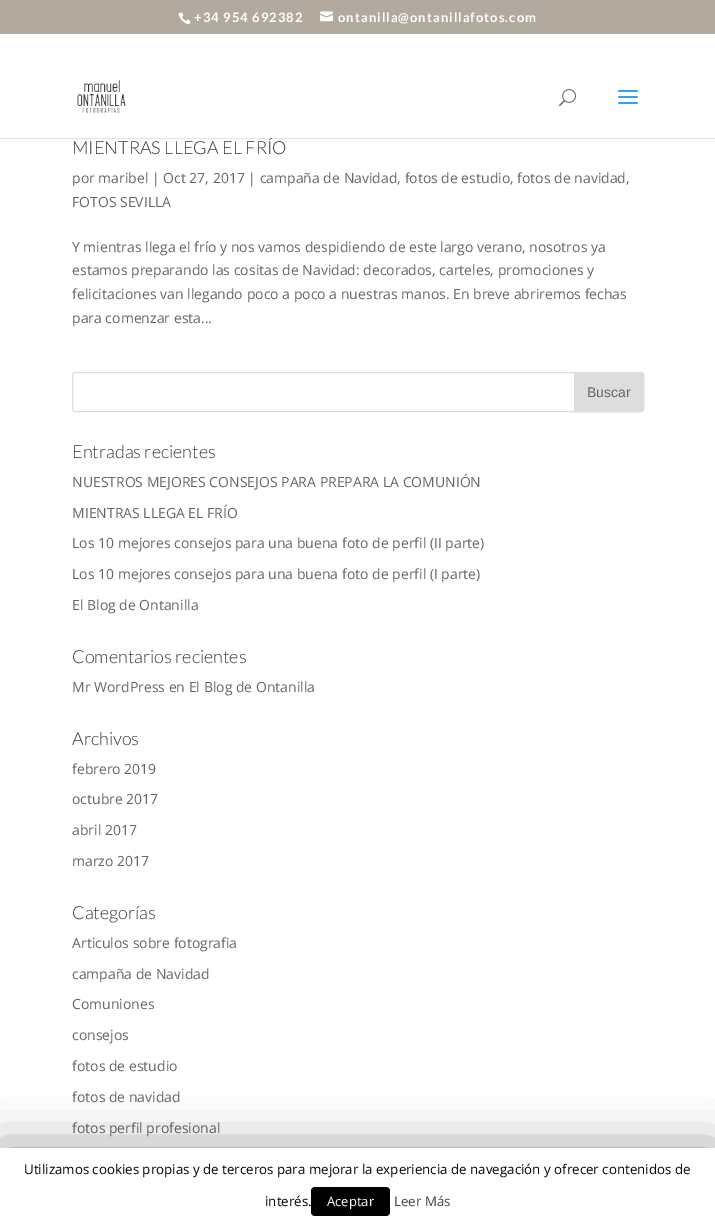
%!PS
<< /PageSize [715 1226] /PageUsesTransparency true >> setpagedevice
/rgb { dup -16 bitshift 255 div exch dup -8 bitshift 255 and 255 div exch 255 and 255 div setrgbcolor } def
/font { [ exch dup neg 0 0 3 -1 roll 0 0 ] selectfont } def
/text { moveto show } def
/alpha { dup .setfillconstantalpha .setstrokeconstantalpha } def
/roundrect { 5 dict begin { /r /h /w /y /x } { exch def } forall
  x r add y moveto x w add y 2 copy h add r arct x w add y h add x 1 index r arct
  x y h add x y r arct x y 2 copy exch w add exch r arct closepath end } def
/shadow { 12 dict begin { /a /b /q /h /w /y /x } { exch def } forall gsave /was 0 def
  9 -2 -9 { dup b mul 4 div /e exch def 1 sub .425 mul 2.718 exch exp 1 add a .99 .min exch div /now exch def
    1 1 now sub 1 was sub div sub alpha /was now def
    w h .min e 2 mul add 0 gt { x e sub y e sub w e 2 mul add h e 2 mul add
      q e add b .6 mul add w h .min 2 div e add .min 0 .max roundrect fill } if } for grestore end } def
/picture { 5 dict begin { /h /w /y /x /name } { exch def } forall
  gsave x y translate w h scale
  w h 8 [w 0 0 h 0 0] name (r) file false 3 colorimage grestore end } def
0 .pushpdf14devicefilter
0 1226 translate 1 -1 scale
4 setmiterlimit
/s1 { /Lato-Light 18 font 16#333333 rgb } def
/s2 { /OpenSans-Regular 14 font 16#666666 rgb } def
/s3 { /LiberationSans-Regular 14 font 16#666666 rgb } def
/s4 { /OpenSans-Regular 13.33 font 16#000000 rgb } def
/s5 { /OpenSans-Regular 13 font 16#FFFFFF rgb } def
/s6 { /OpenSans-Regular 13.33 font 16#444444 rgb } def
16#FFFFFF rgb
0 0 715 1226 rectfill
16#B2AA9E rgb
0 0 715 34 rectfill
(pic1.raw) 178 12 13 13 picture
/Lato-Bold 13 font
16#FFFFFF rgb
194 22 moveto 1 0 (+34 954 692382) ashow
(pic2.raw) 320 11 13 11 picture
338 22 moveto 1 0 (ontanilla@ontanillafotos.com) ashow
0.1 alpha
16#000000 rgb
0 138 715 1 rectfill
1 alpha
(pic3.raw) 77 80 49 33 picture
(pic4.raw) 559 89 17 18 picture
(pic5.raw) 618 90 20 14 picture
s1
(MIENTRAS LLEGA EL FRÍO) 72 154 text
s2
(por maribel | Oct 27, 2017 | campaña de Navidad, fotos de estudio, fotos de navidad,) 72 183 text
(FOTOS SEVILLA) 72 207 text
(Y mientras llega el frío y nos vamos despidiendo de este largo verano, nosotros ya) 72 252 text
(estamos preparando las cositas de Navidad: decorados, carteles, promociones y) 72 275 text
(felicitaciones van llegando poco a poco a nuestras manos. En breve abriremos fechas) 72 299 text
(para comenzar esta...) 72 323 text
16#DDDDDD rgb
72.5 372.5 571 39 2.5 roundrect stroke
574.5 372.5 moveto 641 372.5 lineto 642.5 372.5 643.5 373.5 643.5 375 curveto 643.5 409 lineto 643.5 410.5 642.5 411.5 641 411.5 curveto 574.5 411.5 lineto closepath gsave fill grestore
stroke
s3
(Buscar) 587 397 text
s1
(Entradas recientes) 72 458 text
s2
(NUESTROS MEJORES CONSEJOS PARA PREPARA LA COMUNIÓN) 72 487 text
(MIENTRAS LLEGA EL FRÍO) 72 518 text
(Los 10 mejores consejos para una buena foto de perfil \(II parte\)) 72 548 text
(Los 10 mejores consejos para una buena foto de perfil \(I parte\)) 72 579 text
(El Blog de Ontanilla) 72 610 text
s1
(Comentarios recientes) 72 663 text
s2
(Mr WordPress en El Blog de Ontanilla) 72 692 text
s1
(Archivos) 72 745 text
s2
(febrero 2019) 72 774 text
(octubre 2017) 72 804 text
(abril 2017) 72 835 text
(marzo 2017) 72 866 text
s1
(Categorías) 72 919 text
s2
(Articulos sobre fotografia) 72 948 text
(campaña de Navidad) 72 979 text
(Comuniones) 72 1009 text
(consejos) 72 1040 text
(fotos de estudio) 72 1071 text
(fotos de navidad) 72 1102 text
(fotos perfil profesional) 72 1133 text
16#000000 rgb
0 1153 715 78 0 25 0.5 shadow
16#FFFFFF rgb
0 1148 715 78 rectfill
s4
(Utilizamos cookies propias y de terceros para mejorar la experiencia de navegación y ofrecer contenidos de) 24 1174 text
(interés.) 265 1206 text
311 1187 79 29 4 roundrect fill
s5
(Aceptar) 327 1206 text
s6
(Leer Más) 394 1206 text
.poppdf14devicefilter showpage
